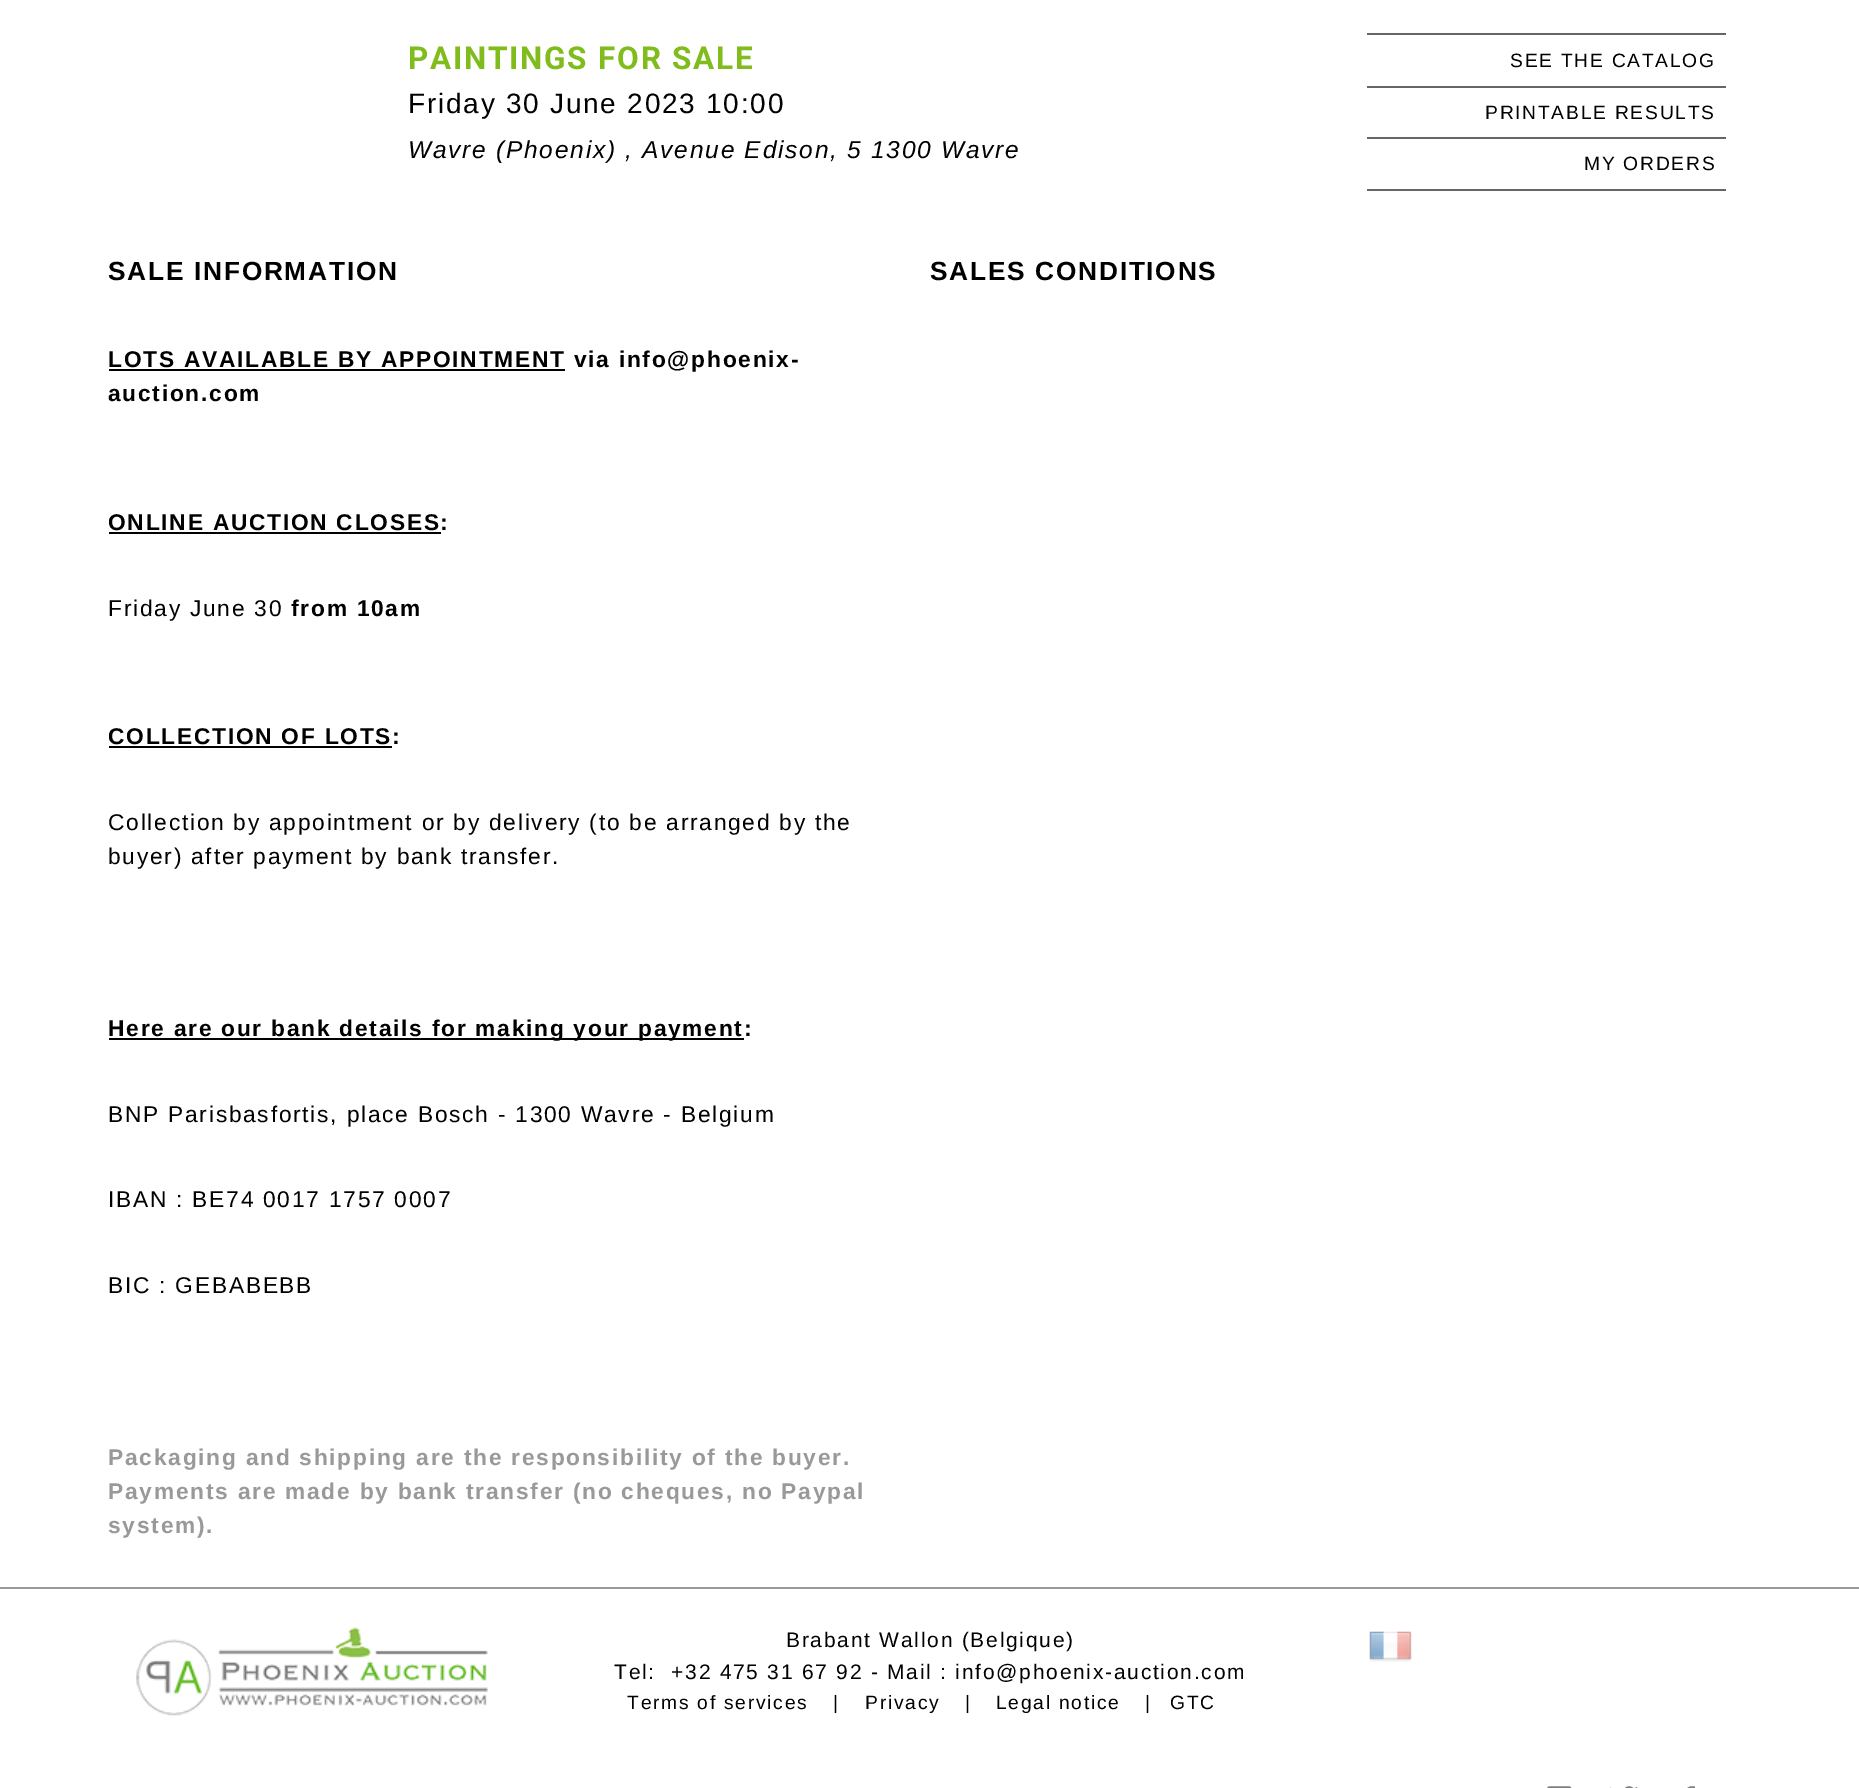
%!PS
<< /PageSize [1859 1788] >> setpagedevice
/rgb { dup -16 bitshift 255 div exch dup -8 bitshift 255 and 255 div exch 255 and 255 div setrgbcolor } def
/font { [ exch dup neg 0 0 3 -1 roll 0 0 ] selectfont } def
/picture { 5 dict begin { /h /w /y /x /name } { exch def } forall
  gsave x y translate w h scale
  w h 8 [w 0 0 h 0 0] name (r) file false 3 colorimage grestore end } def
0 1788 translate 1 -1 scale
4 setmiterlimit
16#FFFFFF rgb
0 0 1859 1788 rectfill
/Roboto-Bold 31.5 font
16#80BC1C rgb
408 69 moveto 1.75 0 (PAINTINGS FOR SALE) ashow
/LiberationSans-Regular 28 font
16#000000 rgb
408 113 moveto 1.75 0 (Friday 30 June 2023 10:00) ashow
/LiberationSans-Italic 24.5 font
408 158 moveto 1.75 0 (Wavre \(Phoenix\) , Avenue Edison, 5 1300 Wavre) ashow
16#666666 rgb
1367 33 359 2 rectfill
1367 86 359 2 rectfill
/LiberationSans-Regular 19.25 font
16#000000 rgb
1510 67 moveto 1.75 0 (SEE THE CATALOG) ashow
16#666666 rgb
1367 137 359 2 rectfill
16#000000 rgb
1485 119 moveto 1.75 0 (PRINTABLE RESULTS) ashow
16#666666 rgb
1367 189 359 2 rectfill
16#000000 rgb
1584 170 moveto 1.75 0 (MY ORDERS) ashow
/LiberationSans-Bold 26.25 font
108 280 moveto 1.75 0 (SALE INFORMATION) ashow
109 369 456 2 rectfill
/LiberationSans-Bold 22.75 font
108 367 moveto 1.75 0 (LOTS AVAILABLE BY APPOINTMENT via info@phoenix-) ashow
108 401 moveto 1.75 0 (auction.com) ashow
108 530 moveto 1.75 0 (ONLINE AUCTION CLOSES:) ashow
109 532 332 2 rectfill
/LiberationSans-Regular 22.75 font
108 616 moveto 1.75 0 (Friday June 30) ashow
/LiberationSans-Bold 22.75 font
291 616 moveto 1.75 0 (from 10am) ashow
108 744 moveto 1.75 0 (COLLECTION OF LOTS:) ashow
109 746 283 2 rectfill
/LiberationSans-Regular 22.75 font
108 830 moveto 1.75 0 (Collection by appointment or by delivery \(to be arranged by the) ashow
108 864 moveto 1.75 0 (buyer\) after payment by bank transfer.) ashow
109 1038 635 2 rectfill
/LiberationSans-Bold 22.75 font
108 1036 moveto 1.75 0 (Here are our bank details for making your payment:) ashow
/LiberationSans-Regular 22.75 font
108 1122 moveto 1.75 0 (BNP Parisbasfortis, place Bosch - 1300 Wavre - Belgium) ashow
108 1207 moveto 1.75 0 (IBAN : BE74 0017 1757 0007) ashow
108 1293 moveto 1.75 0 (BIC : GEBABEBB) ashow
/LiberationSans-Bold 22.75 font
16#999999 rgb
108 1465 moveto 1.75 0 (Packaging and shipping are the responsibility of the buyer.) ashow
108 1499 moveto 1.75 0 (Payments are made by bank transfer \(no cheques, no Paypal) ashow
108 1533 moveto 1.75 0 (system\).) ashow
/LiberationSans-Bold 26.25 font
16#000000 rgb
930 280 moveto 1.75 0 (SALES CONDITIONS) ashow
16#999999 rgb
0 1587 1859 2 rectfill
(pic1.raw) 136 1627 352 89 picture
/LiberationSans-Regular 21 font
16#000000 rgb
786 1647 moveto 1.75 0 (Brabant Wallon \(Belgique\)) ashow
614 1679 moveto 1.75 0 (Tel:  +32 475 31 67 92 - Mail : info@phoenix-auction.com) ashow
/LiberationSans-Regular 19.25 font
627 1709 moveto 1.75 0 (Terms of services) ashow
833 1709 moveto 1.75 0 (|) ashow
865 1709 moveto 1.75 0 (Privacy) ashow
965 1709 moveto 1.75 0 (|) ashow
996 1709 moveto 1.75 0 (Legal notice) ashow
1145 1709 moveto 1.75 0 (|) ashow
1170 1709 moveto 1.75 0 (GTC) ashow
(pic2.raw) 1369 1631 43 31 picture
(pic3.raw) 1547 1786 25 2 picture
(pic4.raw) 1610 1786 28 2 picture
(pic5.raw) 1687 1786 8 2 picture
showpage
